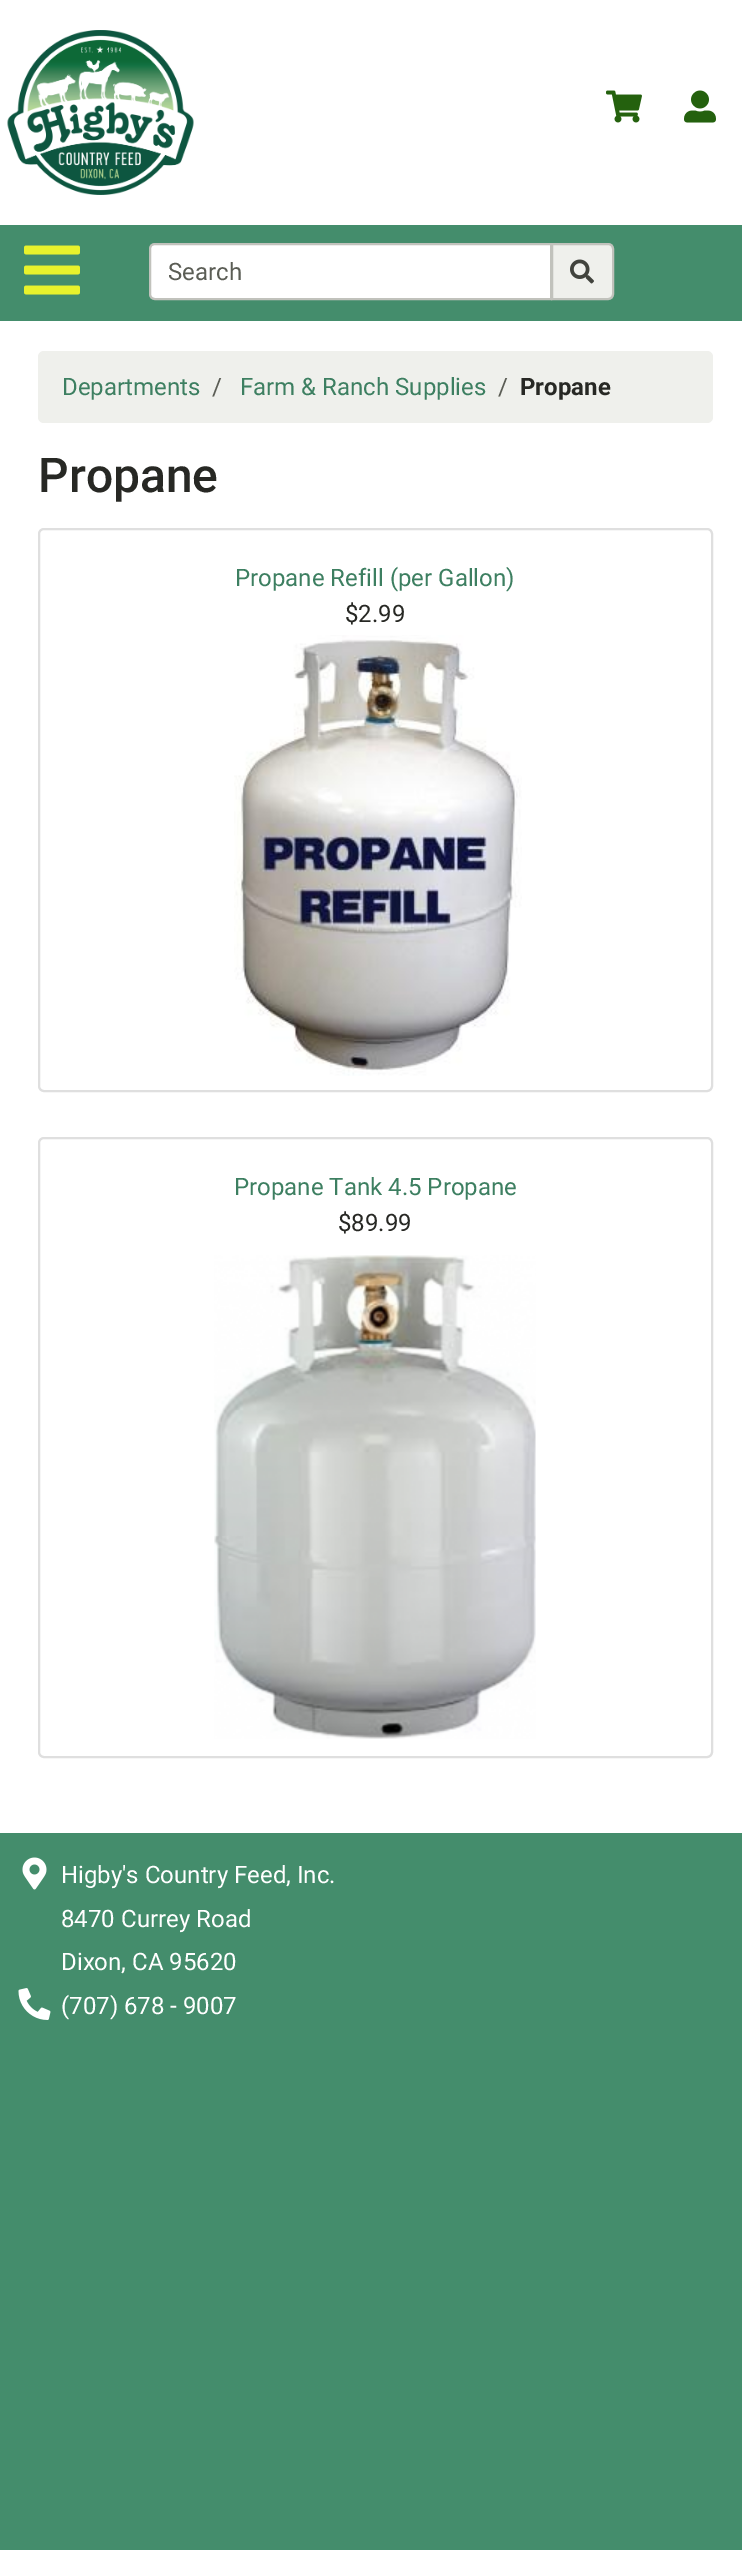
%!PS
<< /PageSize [742 2550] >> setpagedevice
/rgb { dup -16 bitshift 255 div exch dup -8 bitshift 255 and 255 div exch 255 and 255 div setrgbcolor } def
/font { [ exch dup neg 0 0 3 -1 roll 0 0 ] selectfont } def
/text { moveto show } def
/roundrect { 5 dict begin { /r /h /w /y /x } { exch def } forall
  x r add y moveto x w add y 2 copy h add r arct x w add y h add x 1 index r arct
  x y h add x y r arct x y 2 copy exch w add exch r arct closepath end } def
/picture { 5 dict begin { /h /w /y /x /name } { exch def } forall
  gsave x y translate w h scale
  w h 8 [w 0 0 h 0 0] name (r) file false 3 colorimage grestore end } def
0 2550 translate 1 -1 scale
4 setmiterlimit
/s1 { /Roboto-Regular 24 font 16#5B5D55 rgb } def
/s2 { /Roboto-Regular 24 font 16#3D7F61 rgb } def
/s3 { /Roboto-Bold 24 font 16#272824 rgb } def
/s4 { /Roboto-Medium 48 font 16#272824 rgb } def
/s5 { /Roboto-Regular 24 font 16#272824 rgb } def
/s6 { /Roboto-Regular 24 font 16#FFFFFF rgb } def
16#448D6C rgb
0 0 742 2550 rectfill
16#FFFFFF rgb
0 0 742 1833 rectfill
(pic1.raw) 7 30 187 165 picture
(pic2.raw) 606 90 36 33 picture
(pic3.raw) 684 90 32 33 picture
16#448D6C rgb
0 225 742 96 rectfill
(pic4.raw) 24 245 56 50 picture
16#FFFFFF rgb
155 244 moveto 551 244 lineto 551 299 lineto 155 299 lineto 152 299 150 297 150 294 curveto 150 249 lineto 150 246 152 244 155 244 curveto closepath gsave fill grestore
16#C1C2BC rgb
2 setlinewidth
stroke
s1
(Search) 168 280 text
16#EFF0EC rgb
552 244 moveto 608 244 lineto 611 244 613 246 613 249 curveto 613 294 lineto 613 297 611 299 608 299 curveto 552 299 lineto closepath gsave fill grestore
16#C1C2BC rgb
stroke
(pic5.raw) 570 259 24 25 picture
16#EFF0EC rgb
38 351 675 72 6 roundrect fill
s2
(Departments) 62 395 text
s1
(/) 212 395 text
s2
(Farm & Ranch Supplies) 240 395 text
s1
(/) 498 395 text
s3
(Propane) 520 395 text
s4
(Propane) 38 492 text
16#DFDFDF rgb
39 529 673 562 5 roundrect stroke
s2
(Propane Refill \(per Gallon\)) 235 586 text
s5
($2.99) 345 622 text
(pic6.raw) 234 635 288 441 picture
16#DFDFDF rgb
39 1138 673 619 5 roundrect stroke
s2
(Propane Tank 4.5 Propane) 234 1195 text
s5
($89.99) 338 1231 text
(pic7.raw) 214 1255 322 484 picture
(pic8.raw) 22 1857 25 33 picture
s6
(Higby's Country Feed, Inc.) 61 1883 text
(8470 Currey Road) 61 1927 text
(Dixon, CA 95620) 61 1970 text
(pic9.raw) 18 1988 33 32 picture
(\(707\) 678 - 9007) 61 2014 text
showpage
